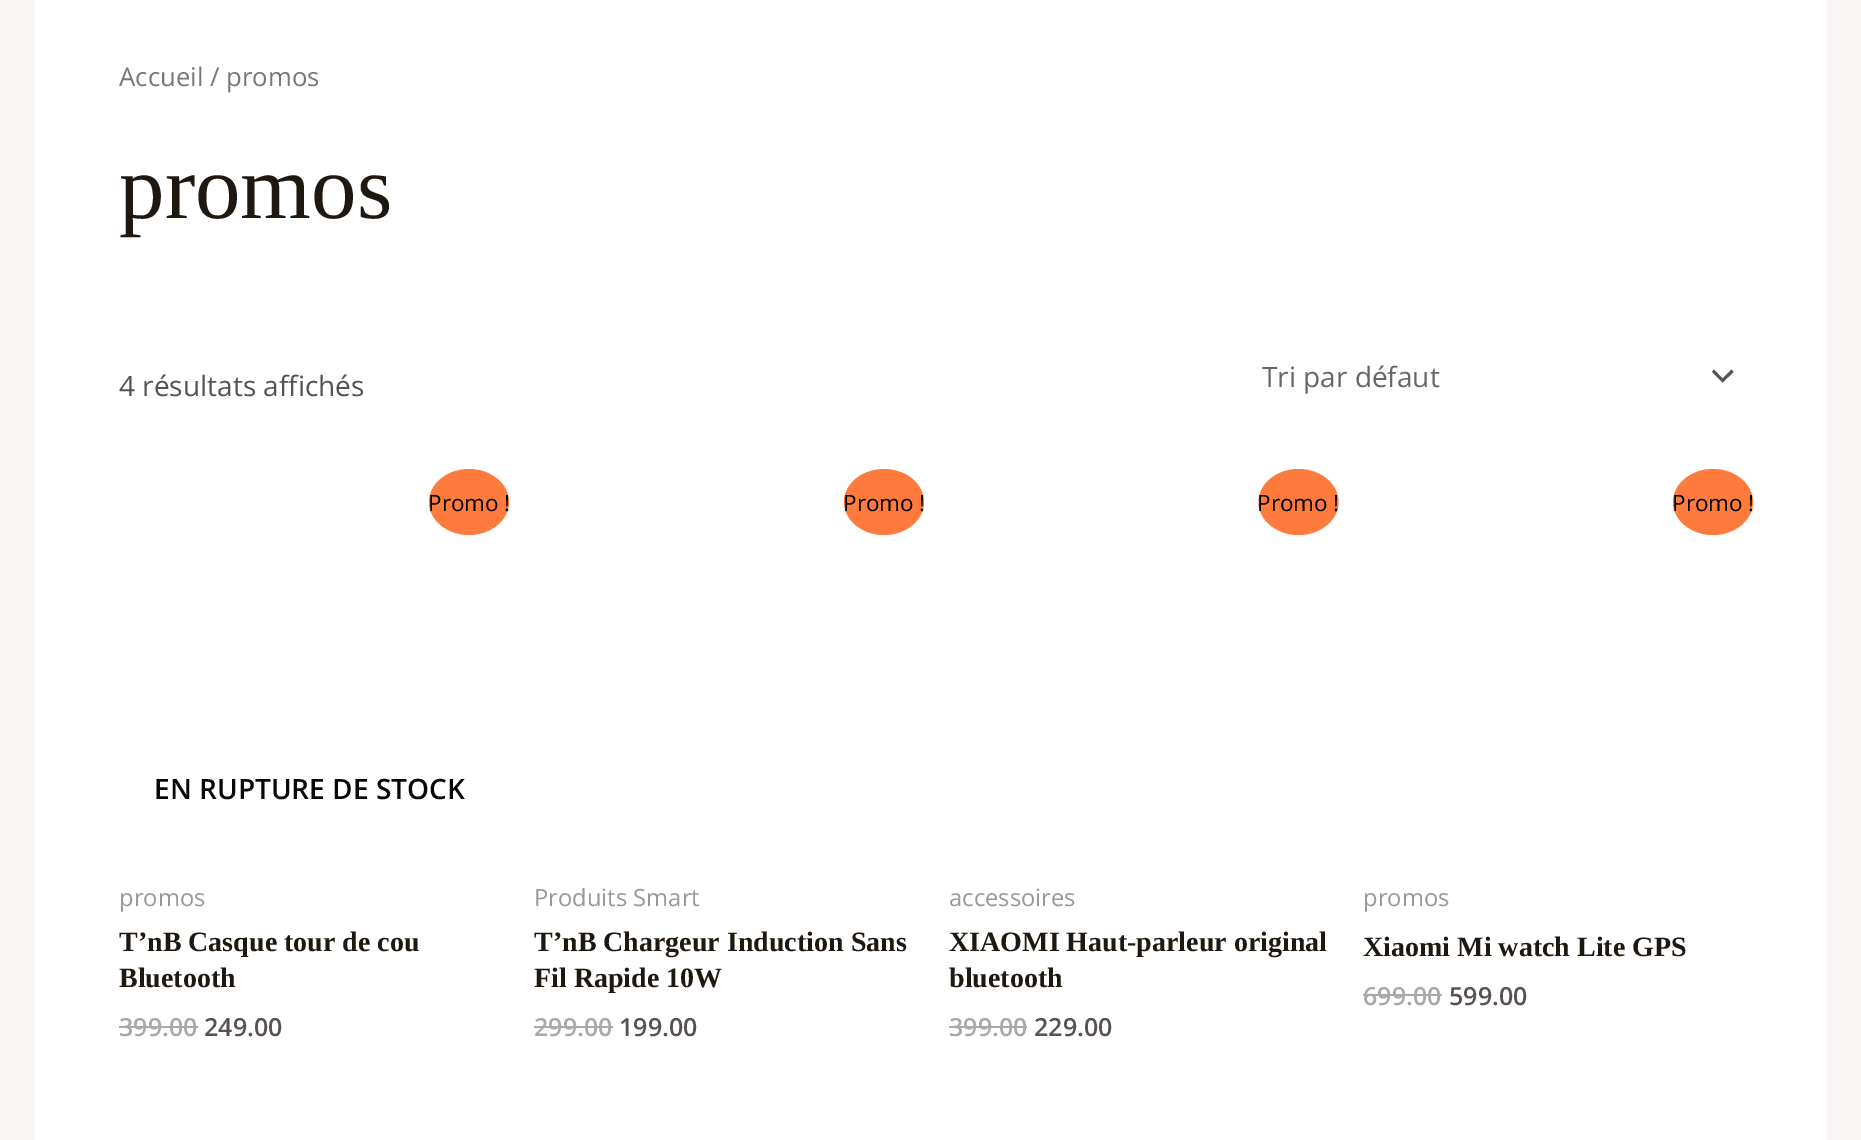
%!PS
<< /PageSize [1861 1140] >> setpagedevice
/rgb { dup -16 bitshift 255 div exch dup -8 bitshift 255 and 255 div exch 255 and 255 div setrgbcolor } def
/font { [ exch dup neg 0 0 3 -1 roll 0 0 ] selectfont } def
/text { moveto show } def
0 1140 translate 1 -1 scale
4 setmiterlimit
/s1 { /OpenSans-Regular 25.75 font 16#777777 rgb } def
/s2 { /LiberationSerif-Regular 91 font 16#1E1810 rgb } def
/s3 { /OpenSans-Regular 28 font 16#575250 rgb } def
/s4 { /OpenSans-Regular 28 font 16#666666 rgb } def
/s5 { /OpenSans-Regular 22.5 font 16#000000 rgb } def
/s6 { /OpenSans-SemiBold 28 font 16#080808 rgb } def
/s7 { /OpenSans-Regular 23.75 font 16#9A9796 rgb } def
/s8 { /LiberationSerif-Bold 28 font 16#1E1810 rgb } def
/s9 { /OpenSans-SemiBold 25 font 16#ABA9A8 rgb } def
/s10 { /OpenSans-SemiBold 25 font 16#575250 rgb } def
16#F8F5F4 rgb
0 0 1861 1140 rectfill
16#FFFFFF rgb
35 0 1792 1140 rectfill
s1
(Accueil / promos) 119 86 text
s2
(promos) 119 218 text
s3
(4 résultats affichés) 119 396 text
1712 372 moveto 1722.5 382.5 lineto 1733.5 372 lineto 1731.5 369.5 lineto 1722.5 378.5 lineto 1714 369.5 lineto closepath fill
s4
(Tri par défaut) 1262 387 text
16#FF7A3D rgb
469 469 moveto 491 469 509 484 509 502 curveto 509 520 491 535 469 535 curveto 447 535 429 520 429 502 curveto 429 484 447 469 469 469 curveto closepath fill
s5
(Promo !) 428 511 text
s6
(EN RUPTURE DE STOCK) 154 799 text
s7
(promos) 119 906 text
s8
(T’nB Casque tour de cou) 119 951 text
(Bluetooth) 119 987 text
s9
(399.00) 119 1036 text
119 1026 79 2 rectfill
s10
(249.00) 204 1036 text
16#FF7A3D rgb
884 469 moveto 906 469 924 484 924 502 curveto 924 520 906 535 884 535 curveto 862 535 844 520 844 502 curveto 844 484 862 469 884 469 curveto closepath fill
s5
(Promo !) 843 511 text
s7
(Produits Smart) 534 906 text
s8
(T’nB Chargeur Induction Sans) 534 951 text
(Fil Rapide 10W) 534 987 text
s9
(299.00) 534 1036 text
534 1026 79 2 rectfill
s10
(199.00) 619 1036 text
16#FF7A3D rgb
1298.5 469 moveto 1320.5 469 1338.5 484 1338.5 502 curveto 1338.5 520 1320.5 535 1298.5 535 curveto 1276.5 535 1258.5 520 1258.5 502 curveto 1258.5 484 1276.5 469 1298.5 469 curveto closepath fill
s5
(Promo !) 1257 511 text
s7
(accessoires) 949 906 text
s8
(XIAOMI Haut-parleur original) 949 951 text
(bluetooth) 949 987 text
s9
(399.00) 949 1036 text
949 1026 78 2 rectfill
s10
(229.00) 1034 1036 text
16#FF7A3D rgb
1713 469 moveto 1735 469 1753 484 1753 502 curveto 1753 520 1735 535 1713 535 curveto 1691 535 1673 520 1673 502 curveto 1673 484 1691 469 1713 469 curveto closepath fill
s5
(Promo !) 1672 511 text
s7
(promos) 1363 906 text
s8
(Xiaomi Mi watch Lite GPS) 1363 956 text
s9
(699.00) 1363 1005 text
1363 994 79 2 rectfill
s10
(599.00) 1449 1005 text
showpage
